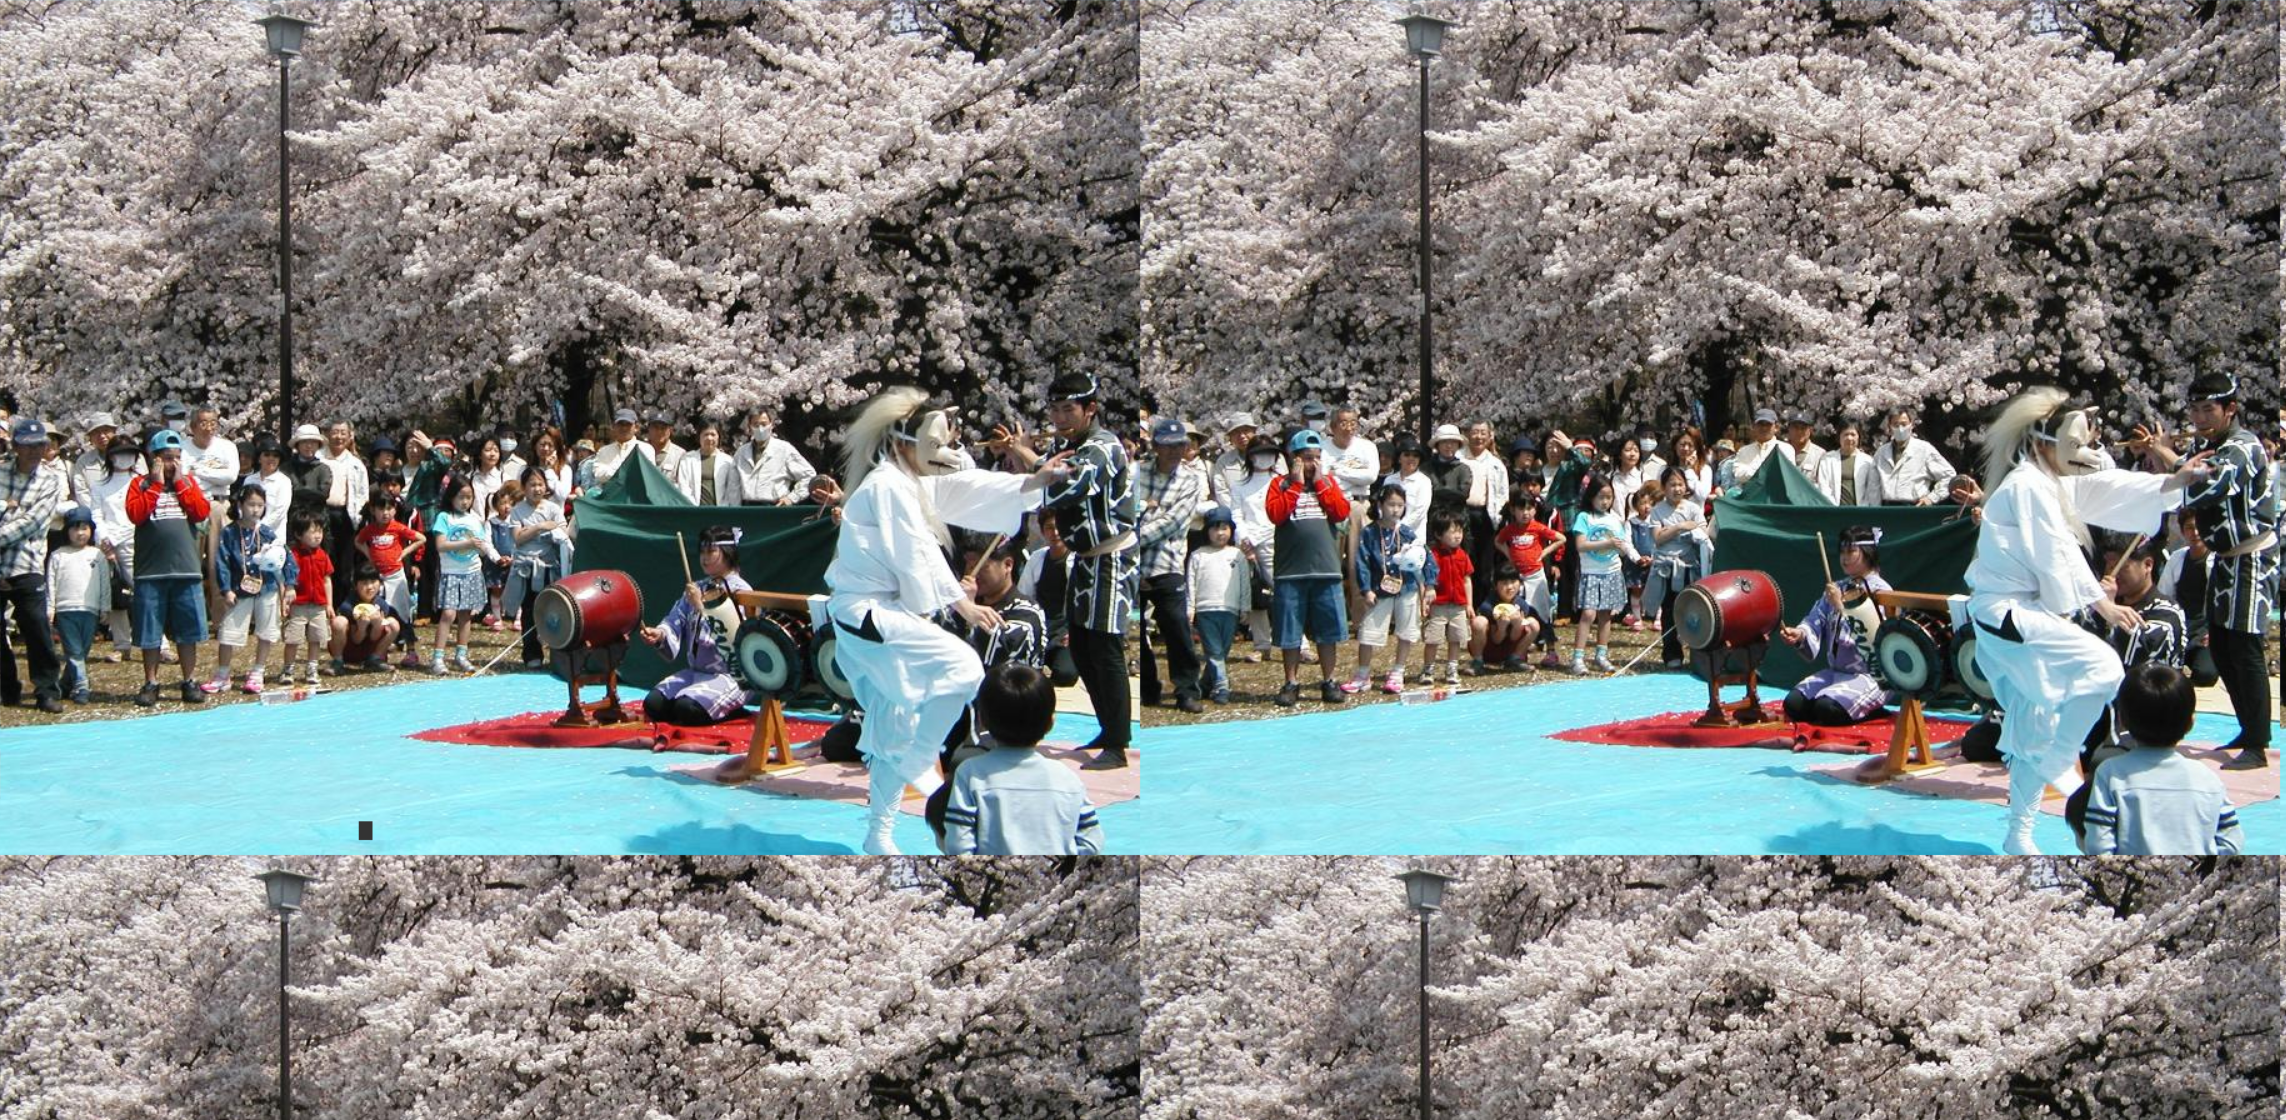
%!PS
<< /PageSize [2286 1120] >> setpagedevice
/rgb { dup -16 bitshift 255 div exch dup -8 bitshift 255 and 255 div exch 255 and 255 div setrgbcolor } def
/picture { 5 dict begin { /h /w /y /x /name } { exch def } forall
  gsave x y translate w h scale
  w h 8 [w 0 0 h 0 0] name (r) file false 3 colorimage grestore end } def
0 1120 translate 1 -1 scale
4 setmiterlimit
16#FFFFFF rgb
0 0 2286 1120 rectfill
(pic1.raw) 0 0 2286 1120 picture
(pic2.raw) 358 821 15 20 picture
showpage
